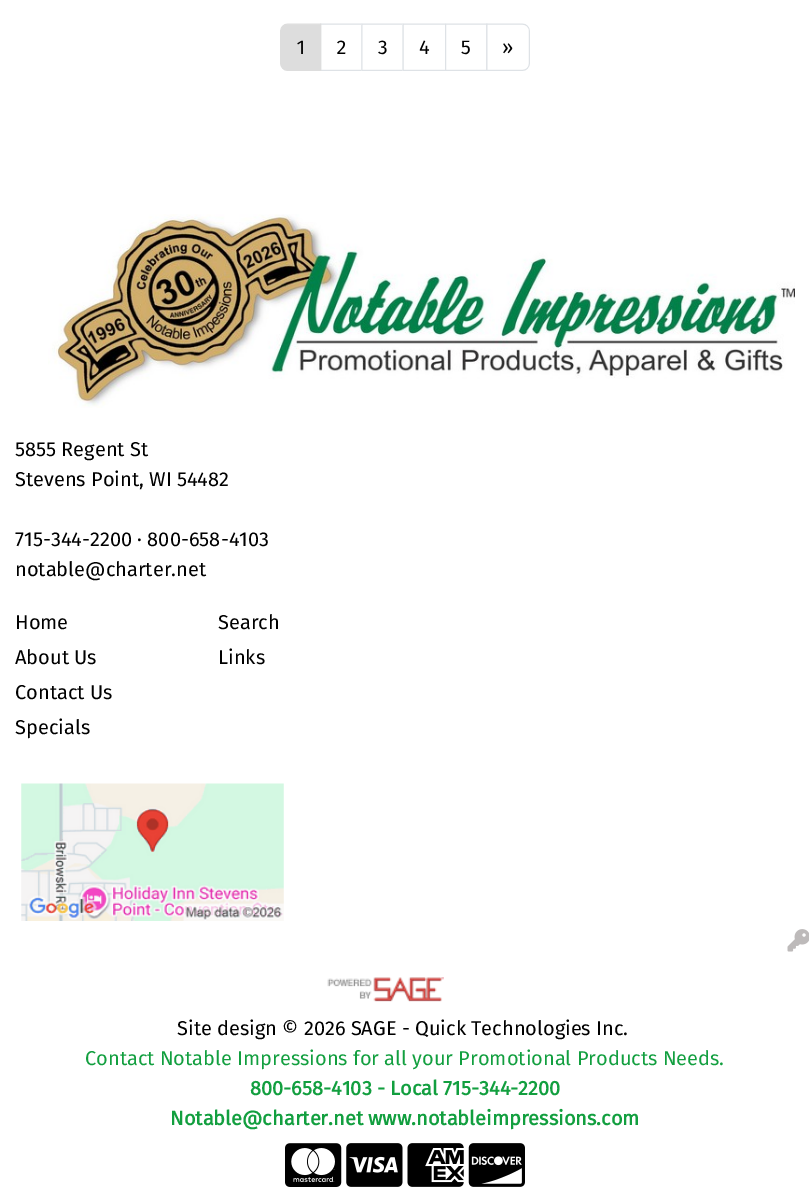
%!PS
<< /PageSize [809 1192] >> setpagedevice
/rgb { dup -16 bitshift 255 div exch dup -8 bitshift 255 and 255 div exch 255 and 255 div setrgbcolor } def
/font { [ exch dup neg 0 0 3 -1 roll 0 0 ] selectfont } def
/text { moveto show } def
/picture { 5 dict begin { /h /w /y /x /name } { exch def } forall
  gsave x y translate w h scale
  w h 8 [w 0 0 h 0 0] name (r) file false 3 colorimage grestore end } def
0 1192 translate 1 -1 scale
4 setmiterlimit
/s1 { /FiraSans-Regular 20 font 16#000000 rgb } def
/s2 { /FiraSans-Regular 20 font 16#129F3F rgb } def
/s3 { /FiraSans-Bold 20 font 16#129F3F rgb } def
16#FFFFFF rgb
0 0 809 1192 rectfill
(pic1.raw) 280 23 250 48 picture
(pic2.raw) 48 214 747 194 picture
s1
(5855 Regent St) 15 456 text
(Stevens Point, WI 54482) 15 486 text
(715-344-2200 · 800-658-4103) 15 546 text
(notable@charter.net) 15 576 text
(Home) 15 629 text
(About Us) 15 664 text
(Contact Us) 15 699 text
(Specials) 15 734 text
(Search) 218 629 text
(Links) 218 664 text
(pic3.raw) 21 783 263 138 picture
(pic4.raw) 787 929 22 23 picture
(pic5.raw) 327 977 117 25 picture
(Site design © 2026 SAGE - Quick Technologies Inc.) 177 1035 text
s2
(Contact Notable Impressions for all your Promotional Products Needs.) 85 1065 text
s3
(800-658-4103 - Local 715-344-2200) 250 1095 text
(Notable@charter.net www.notableimpressions.com) 170 1125 text
(pic6.raw) 285 1143 57 44 picture
(pic7.raw) 346 1143 57 44 picture
(pic8.raw) 407 1143 57 44 picture
(pic9.raw) 468 1143 57 44 picture
showpage
